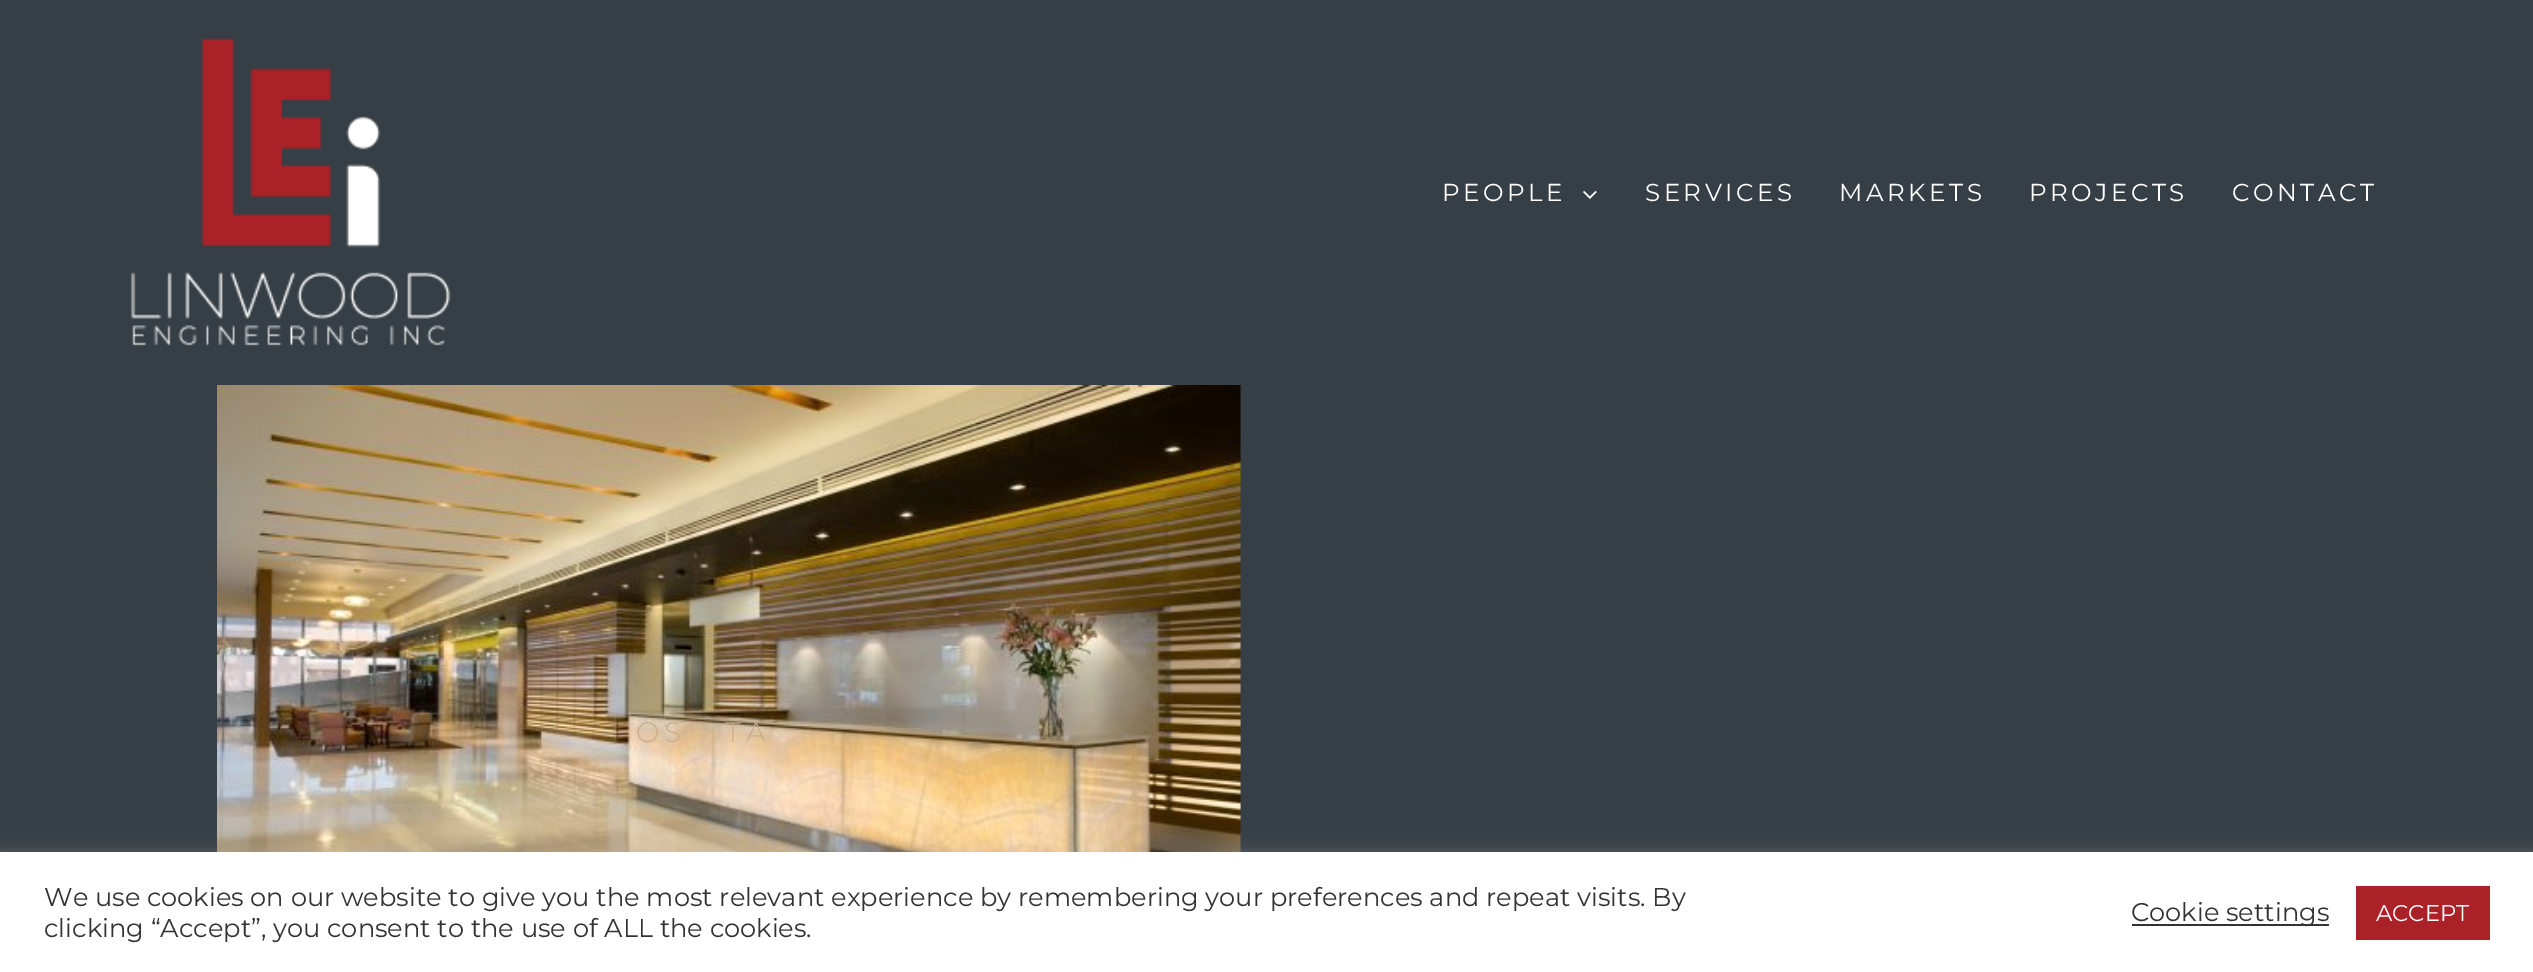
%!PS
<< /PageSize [2533 972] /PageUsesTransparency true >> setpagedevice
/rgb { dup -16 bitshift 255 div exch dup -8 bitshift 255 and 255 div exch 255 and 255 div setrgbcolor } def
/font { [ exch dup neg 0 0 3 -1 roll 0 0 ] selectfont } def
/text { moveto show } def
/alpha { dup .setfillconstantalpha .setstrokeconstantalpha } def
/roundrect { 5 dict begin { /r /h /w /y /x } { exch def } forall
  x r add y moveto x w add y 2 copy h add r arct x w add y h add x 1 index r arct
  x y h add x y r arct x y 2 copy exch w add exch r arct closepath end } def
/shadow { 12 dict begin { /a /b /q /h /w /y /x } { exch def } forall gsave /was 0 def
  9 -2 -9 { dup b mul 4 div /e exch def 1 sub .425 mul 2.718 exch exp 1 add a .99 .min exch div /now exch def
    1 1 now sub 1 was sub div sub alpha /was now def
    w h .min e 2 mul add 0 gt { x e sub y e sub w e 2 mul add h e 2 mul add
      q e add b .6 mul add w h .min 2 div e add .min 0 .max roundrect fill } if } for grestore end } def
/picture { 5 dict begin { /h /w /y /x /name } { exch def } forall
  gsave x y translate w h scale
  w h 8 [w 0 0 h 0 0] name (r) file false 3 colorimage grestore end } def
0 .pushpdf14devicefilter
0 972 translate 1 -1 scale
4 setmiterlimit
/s1 { /Montserrat-Regular 25.67 font 16#333333 rgb } def
/s2 { /Montserrat-Regular 22.75 font 16#FFFFFF rgb } def
16#363F45 rgb
0 0 2533 972 rectfill
(pic1.raw) 130 38 321 308 picture
/Montserrat-Regular 24.5 font
16#FFFFFF rgb
1442 201 moveto 3.5 0 (PEOPLE) ashow
(pic2.raw) 1583 191 14 8 picture
1645 201 moveto 3.5 0 (SERVICES) ashow
1839 201 moveto 3.5 0 (MARKETS) ashow
2029 201 moveto 3.5 0 (PROJECTS) ashow
2232 201 moveto 3.5 0 (CONTACT) ashow
(pic3.raw) 217 385 1024 467 picture
/Montserrat-Light 28 font
16#C7AD8B rgb
636 742 moveto 5 0 (OS) ashow
725 742 moveto 5 0 (TA) ashow
16#ACABAB rgb
0 851 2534 120 0 9 0.3 shadow
16#FFFFFF rgb
0 852 2533 120 rectfill
s1
(We use cookies on our website to give you the most relevant experience by remembering your preferences and repeat visits. By) 44 906 text
(clicking “Accept”, you consent to the use of ALL the cookies.) 44 937 text
2132 924 197 2 rectfill
(Cookie settings) 2131 921 text
16#AA2128 rgb
2356 886 134 54 rectfill
s2
(ACCEPT) 2376 921 text
.poppdf14devicefilter showpage
